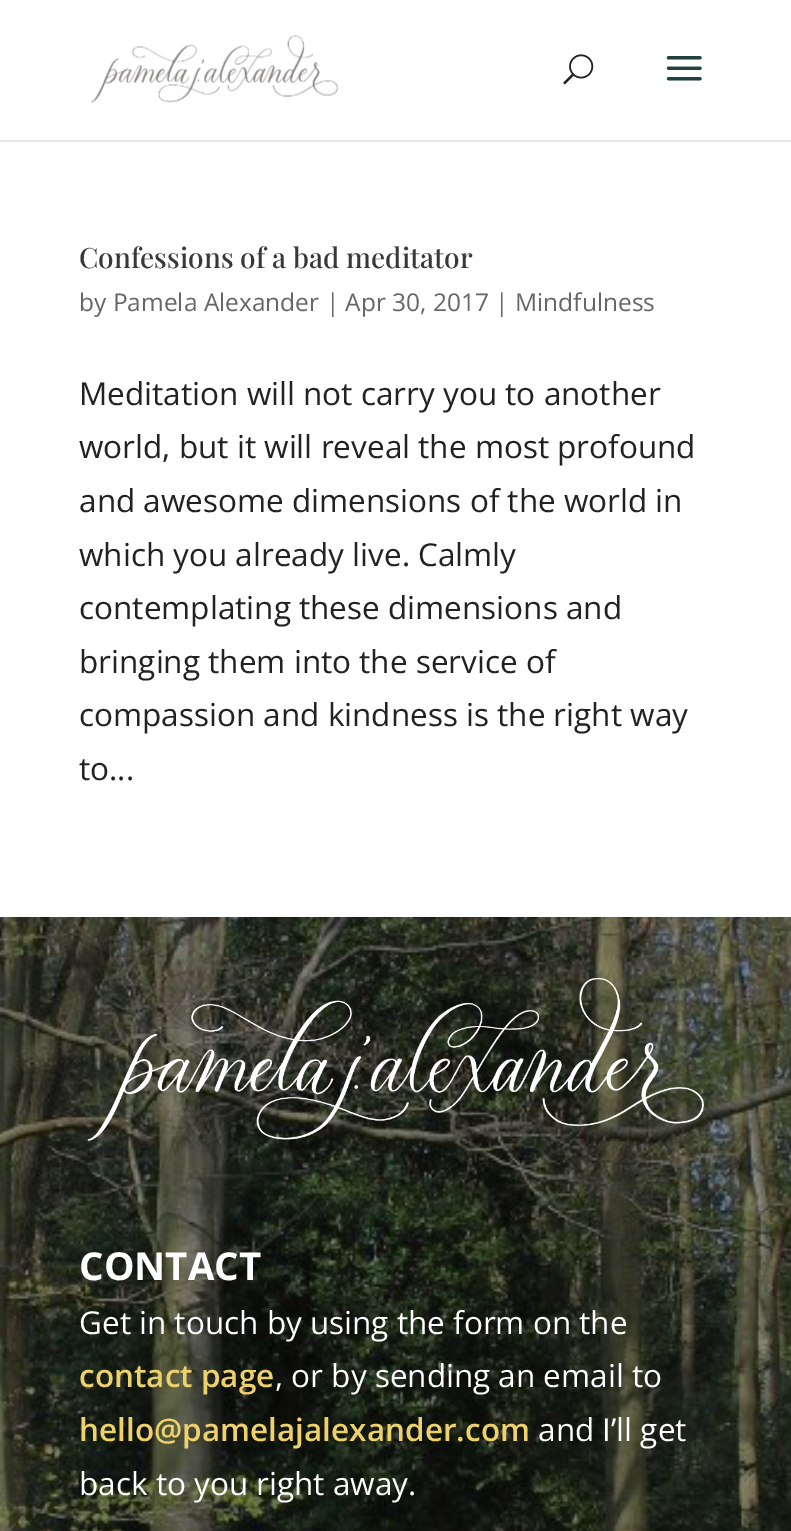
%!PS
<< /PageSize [791 1531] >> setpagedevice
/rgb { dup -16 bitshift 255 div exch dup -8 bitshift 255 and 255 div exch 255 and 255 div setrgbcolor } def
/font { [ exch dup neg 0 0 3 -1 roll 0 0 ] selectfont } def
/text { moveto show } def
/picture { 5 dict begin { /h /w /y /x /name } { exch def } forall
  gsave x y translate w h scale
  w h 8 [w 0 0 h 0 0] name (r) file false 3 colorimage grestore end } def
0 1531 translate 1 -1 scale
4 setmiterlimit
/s1 { /PlayfairDisplay-Medium 28 font 16#383838 rgb } def
/s2 { /OpenSans-Regular 24.5 font 16#666666 rgb } def
/s3 { /OpenSans-Regular 31.5 font 16#222222 rgb } def
/s4 { /OpenSans-Bold 38.5 font 16#FFFFFF rgb } def
/s5 { /OpenSans-Regular 31.5 font 16#FFFFFF rgb } def
/s6 { /OpenSans-SemiBold 31.5 font 16#EED16B rgb } def
16#FFFFFF rgb
0 0 791 1531 rectfill
16#E6E6E6 rgb
0 140 791 2 rectfill
(pic1.raw) 90 35 248 68 picture
(pic2.raw) 563 54 31 31 picture
(pic3.raw) 666 56 36 25 picture
s1
(Confessions of a bad meditator) 79 268 text
s2
(by Pamela Alexander | Apr 30, 2017 | Mindfulness) 79 311 text
s3
(Meditation will not carry you to another) 79 405 text
(world, but it will reveal the most profound) 79 458 text
(and awesome dimensions of the world in) 79 512 text
(which you already live. Calmly) 79 566 text
(contemplating these dimensions and) 79 619 text
(bringing them into the service of) 79 673 text
(compassion and kindness is the right way) 79 726 text
(to...) 79 780 text
(pic4.raw) 0 917 791 614 picture
(pic5.raw) 87 978 617 163 picture
s4
(CONTACT) 79 1280 text
s5
(Get in touch by using the form on the) 79 1334 text
s6
(contact page) 79 1387 text
s5
(, or by sending an email to) 275 1387 text
s6
(hello@pamelajalexander.com) 79 1441 text
s5
(and I’ll get) 538 1441 text
(back to you right away.) 79 1495 text
showpage
